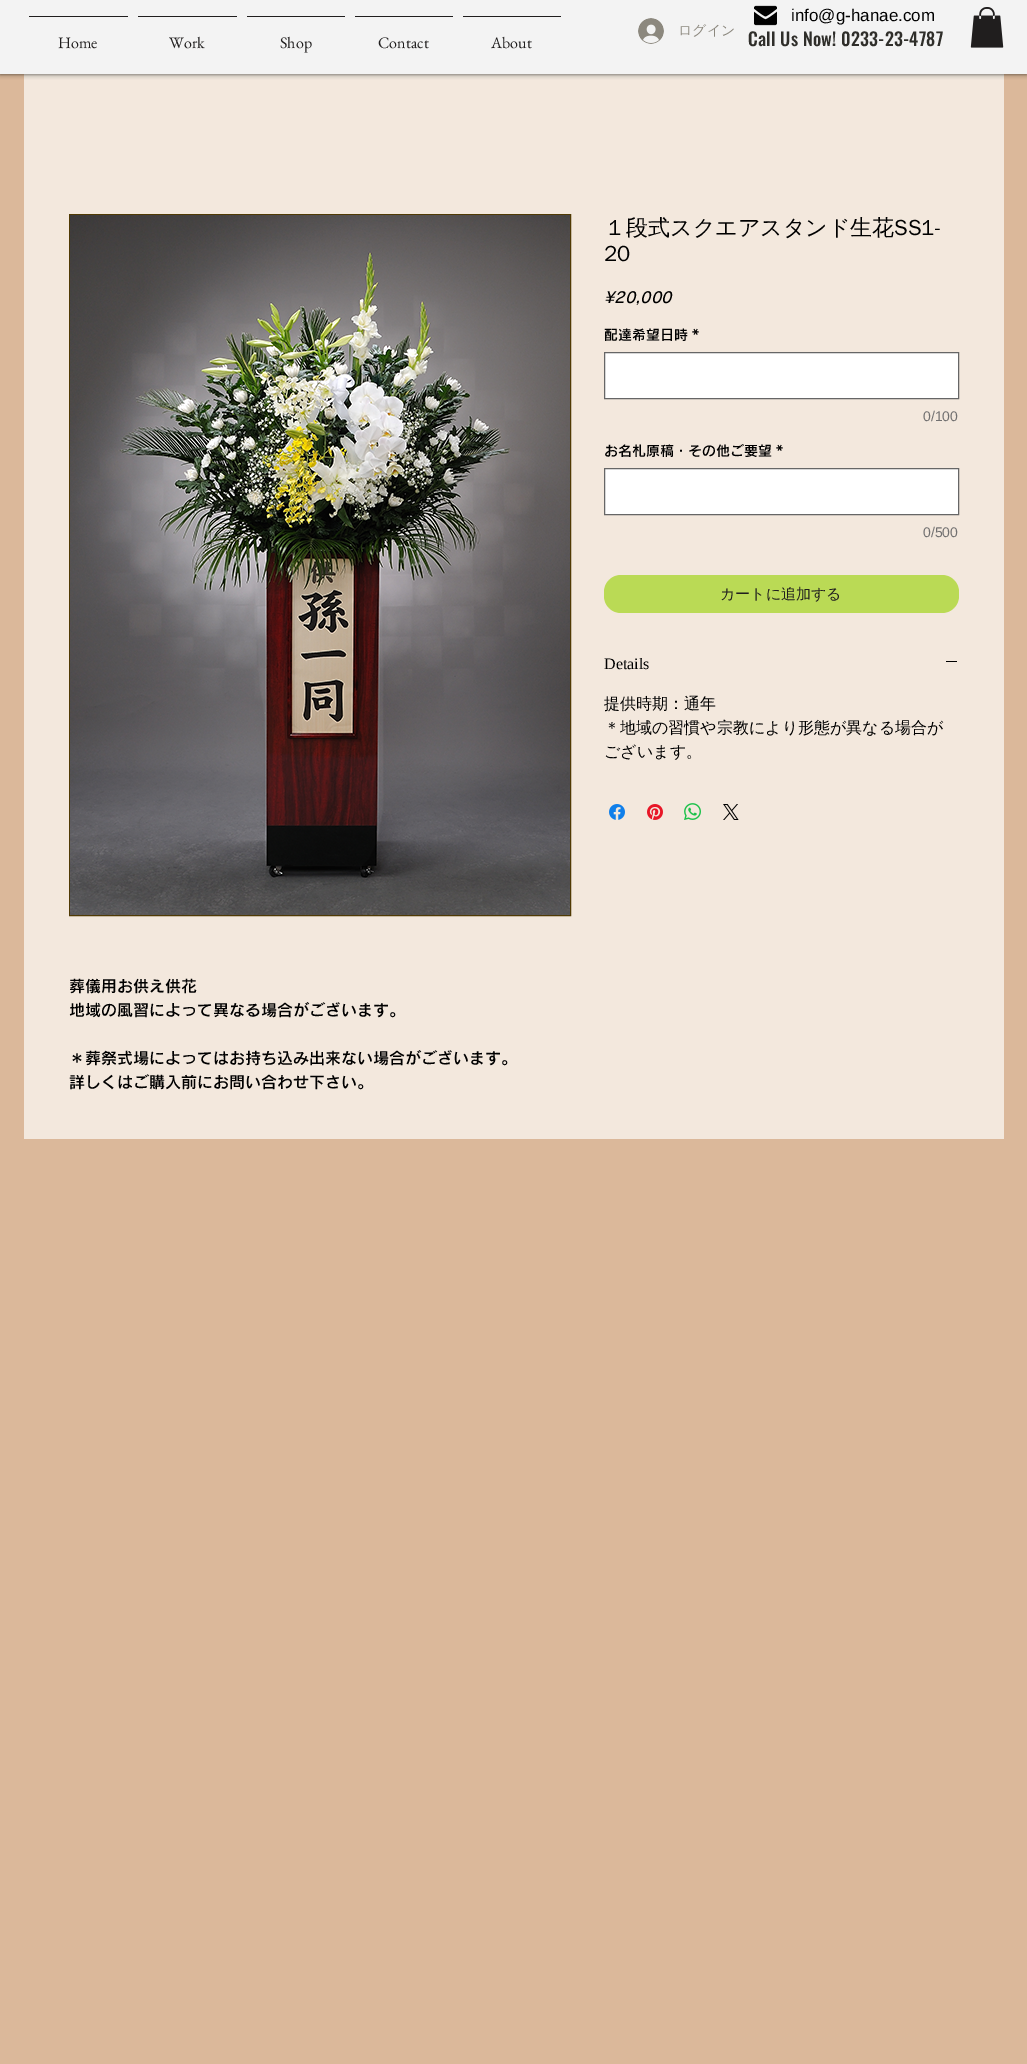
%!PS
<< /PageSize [1027 2064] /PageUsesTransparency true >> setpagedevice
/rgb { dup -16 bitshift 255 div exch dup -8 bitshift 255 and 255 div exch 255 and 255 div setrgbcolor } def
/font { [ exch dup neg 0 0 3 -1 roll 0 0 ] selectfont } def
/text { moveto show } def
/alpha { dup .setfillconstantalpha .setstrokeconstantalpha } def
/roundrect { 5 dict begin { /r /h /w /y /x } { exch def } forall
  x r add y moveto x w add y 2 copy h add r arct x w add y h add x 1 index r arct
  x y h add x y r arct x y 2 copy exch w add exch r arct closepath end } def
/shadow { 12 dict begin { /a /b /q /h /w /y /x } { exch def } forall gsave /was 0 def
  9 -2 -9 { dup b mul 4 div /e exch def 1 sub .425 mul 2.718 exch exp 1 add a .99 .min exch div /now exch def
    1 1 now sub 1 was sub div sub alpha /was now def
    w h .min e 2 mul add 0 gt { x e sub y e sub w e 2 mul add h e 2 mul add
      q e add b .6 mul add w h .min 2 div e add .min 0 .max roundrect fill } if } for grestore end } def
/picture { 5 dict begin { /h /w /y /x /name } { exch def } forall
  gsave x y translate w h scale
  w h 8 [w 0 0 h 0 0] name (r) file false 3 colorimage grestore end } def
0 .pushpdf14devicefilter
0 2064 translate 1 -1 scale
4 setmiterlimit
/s1 { /LiberationSans-Regular 17 font 16#000000 rgb } def
/s2 { /EBGaramond-Regular 16 font 16#201E1E rgb } def
/s3 { /WenQuanYiZenHei-Medium 14 font 16#8C887E rgb } def
/s4 { /WenQuanYiZenHei-Medium 22 font 16#000000 rgb } def
/s5 { /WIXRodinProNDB-SemiBoldItalic 15 font 16#000000 rgb } def
/s6 { /WIXRodinProNDB-SemiBold 14 font 16#000000 rgb } def
/s7 { /LiberationSans-Regular 14 font 16#717070 rgb } def
/s8 { /WenQuanYiZenHei-Medium 15 font 16#201E1E rgb } def
/s9 { /LiberationSerif-Regular 16 font 16#000000 rgb } def
/s10 { /WenQuanYiZenHei-Medium 16 font 16#000000 rgb } def
/s11 { /WIXRodinProNDB-SemiBold 16 font 16#000000 rgb } def
16#DBB89A rgb
0 0 1027 2064 rectfill
16#F3E8DD rgb
24 74 980 1065 rectfill
16#000000 rgb
0 0 1027 74 0 2.5 0.7 shadow
16#F3F3F3 rgb
0 0 1027 74 rectfill
(pic1.raw) 754 5 23 21 picture
s1
(info@g-hanae.com) 791 21 text
(pic2.raw) 970 7 34 41 picture
16#201E1E rgb
29 16 99 1 rectfill
s2
(Home) 58 48 text
138 16 99 1 rectfill
(Work) 169 48 text
247 16 98 1 rectfill
(Shop) 280 48 text
355 16 98 1 rectfill
(Contact) 378 48 text
463 16 98 1 rectfill
(About) 491 48 text
(pic3.raw) 638 18 26 26 picture
s3
(ログイン) 678 35 text
/Oswald-Medium 18 font
16#2F2E2A rgb
748 46 moveto 0.2 0 (Call Us Now! 0233-23-4787) ashow
s4
(１段式スクエアスタンド生花SS1-) 604 235 text
(20) 604 261 text
s5
(¥20,000) 604 303 text
s6
(配達希望日時) 604 340 text
(*) 692 340 text
16#FFFFFF rgb
604.5 352.5 moveto 958.5 352.5 lineto 958.5 398.5 lineto 604.5 398.5 lineto closepath gsave fill grestore
16#666666 rgb
stroke
s7
(0/100) 923 421 text
s6
(お名札原稿・その他ご要望) 604 456 text
(*) 776 456 text
16#FFFFFF rgb
604.5 468.5 moveto 958.5 468.5 lineto 958.5 514.5 lineto 604.5 514.5 lineto closepath gsave fill grestore
16#666666 rgb
stroke
s7
(0/500) 923 537 text
16#BADA55 rgb
604 575 355 38 17 roundrect fill
s8
(カートに追加する) 720 599 text
s9
(Details) 604 669 text
946 661 11 1 rectfill
s10
(提供時期：通年) 604 709 text
(＊地域の習慣や宗教により形態が異なる場合が) 604 733 text
(ございます。) 604 757 text
(pic4.raw) 609 804 16 16 picture
(pic5.raw) 647 804 16 16 picture
(pic6.raw) 684 803 17 17 picture
(pic7.raw) 723 804 16 16 picture
16#503A04 rgb
69.5 214.5 501 701 rectstroke
(pic8.raw) 70 215 500 700 picture
s11
(葬儀用お供え供花) 69 992 text
(地域の風習によって異なる場合がございます。) 69 1016 text
(＊葬祭式場によってはお持ち込み出来ない場合がございます。) 69 1064 text
(詳しくはご購入前にお問い合わせ下さい。) 69 1088 text
.poppdf14devicefilter showpage
